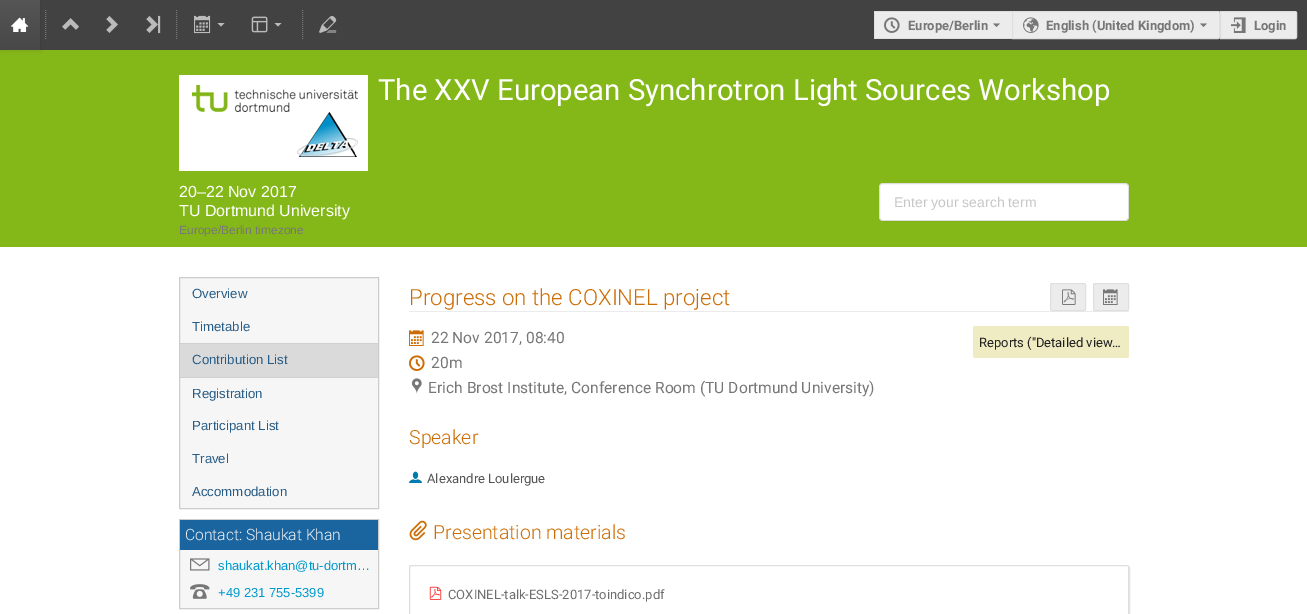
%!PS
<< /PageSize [1307 614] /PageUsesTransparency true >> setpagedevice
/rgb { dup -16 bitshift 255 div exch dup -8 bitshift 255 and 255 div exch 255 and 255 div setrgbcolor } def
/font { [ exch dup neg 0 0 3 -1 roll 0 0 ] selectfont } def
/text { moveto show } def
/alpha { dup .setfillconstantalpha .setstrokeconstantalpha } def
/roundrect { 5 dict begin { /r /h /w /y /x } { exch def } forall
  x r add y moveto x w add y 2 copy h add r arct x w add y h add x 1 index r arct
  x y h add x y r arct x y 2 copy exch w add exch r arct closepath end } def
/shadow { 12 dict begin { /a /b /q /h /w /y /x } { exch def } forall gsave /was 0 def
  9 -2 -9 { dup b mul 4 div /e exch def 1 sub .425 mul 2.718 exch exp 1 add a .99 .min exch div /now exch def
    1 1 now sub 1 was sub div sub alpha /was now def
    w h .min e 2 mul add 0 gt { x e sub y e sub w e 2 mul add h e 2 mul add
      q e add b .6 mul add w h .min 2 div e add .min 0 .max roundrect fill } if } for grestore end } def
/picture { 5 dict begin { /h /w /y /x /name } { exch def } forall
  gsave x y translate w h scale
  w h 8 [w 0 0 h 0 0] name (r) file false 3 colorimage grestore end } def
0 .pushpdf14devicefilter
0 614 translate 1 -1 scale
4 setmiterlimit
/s1 { /Roboto-Bold 13 font 16#777777 rgb } def
/s2 { /Roboto-Regular 29.3 font 16#FFFFFF rgb } def
/s3 { /LiberationSans-Regular 16 font 16#FFFFFF rgb } def
/s4 { /LiberationSans-Regular 12 font 16#777777 rgb } def
/s5 { /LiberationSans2-Regular 14 font 16#C7C7C7 rgb } def
/s6 { /LiberationSans2-Regular 13.25 font 16#275C86 rgb } def
/s7 { /Roboto-Light 15.6 font 16#F3F3F3 rgb } def
/s8 { /LiberationSans-Regular 13 font 16#0099CC rgb } def
/s9 { /Roboto-Light 22.25 font 16#CB6D04 rgb } def
/s10 { /Roboto-Regular 15.6 font 16#777777 rgb } def
/s11 { /Roboto-Regular 13 font 16#202020 rgb } def
/s12 { /Roboto-Light 19.5 font 16#CB6D04 rgb } def
/s13 { /Roboto-Regular 13 font 16#555555 rgb } def
/s14 { /Roboto-Regular 13 font 16#6E6E6E rgb } def
16#FFFFFF rgb
0 0 1307 614 rectfill
16#424242 rgb
40 0 1267 50 rectfill
16#84B819 rgb
0 50 1307 197 rectfill
16#141414 rgb
1 1 40 50 0 2 0.1 shadow
gsave 0 0 moveto 40 0 lineto 40 50 lineto 0 50 lineto closepath clip newpath
<< /ShadingType 2 /ColorSpace /DeviceRGB /Coords [20 0 20 50] /Extend [true true] /Function << /FunctionType 2 /Domain [0 1] /C0 [0.333 0.333 0.333] /C1 [0.282 0.282 0.282] /N 1 >> >> shfill grestore
(pic1.raw) 11 17 18 15 picture
16#777777 rgb
[1 1] 0 setdash
45.5 10 moveto 45.5 40 lineto stroke
(pic2.raw) 62 18 17 12 picture
(pic3.raw) 106 16 12 17 picture
(pic4.raw) 146 15 15 19 picture
176.5 10 moveto 176.5 40 lineto stroke
(pic5.raw) 194 15 17 19 picture
16#BBBBBB rgb
217.5 23 moveto 221 26.5 lineto 224.5 23 lineto closepath fill
(pic6.raw) 251 16 17 17 picture
274.5 23 moveto 278 26.5 lineto 281.5 23 lineto closepath fill
16#777777 rgb
302.5 10 moveto 302.5 40 lineto stroke
(pic7.raw) 319 16 18 17 picture
16#ECECEC rgb
875 12 137 26 rectfill
16#DFDFDF rgb
874 11 138 1 rectfill
874 38 138 1 rectfill
874 11 1 28 rectfill
(pic8.raw) 884 17 16 16 picture
s1
(Europe/Berlin) 908 30 text
993 23.5 moveto 996.5 27 lineto 1000 23.5 lineto closepath fill
16#ECECEC rgb
1012.5 11.5 moveto 1218 11.5 lineto 1219 11.5 1219.5 12 1219.5 13 curveto 1219.5 37 lineto 1219.5 38 1219 38.5 1218 38.5 curveto 1012.5 38.5 lineto closepath gsave fill grestore
16#DFDFDF rgb
[] 0 setdash
stroke
(pic9.raw) 1023 17 16 16 picture
s1
(English \(United Kingdom\)) 1046 30 text
1200 23.5 moveto 1203.5 27 lineto 1207 23.5 lineto closepath fill
16#ECECEC rgb
1220.5 11.5 moveto 1295 11.5 lineto 1296 11.5 1296.5 12 1296.5 13 curveto 1296.5 37 lineto 1296.5 38 1296 38.5 1295 38.5 curveto 1220.5 38.5 lineto closepath gsave fill grestore
16#DFDFDF rgb
stroke
(pic10.raw) 1231 17 15 16 picture
s1
(Login) 1254 30 text
(pic11.raw) 179 75 189 96 picture
s2
(The XXV European Synchrotron Light Sources Workshop) 378 100 text
s3
(20–22 Nov 2017) 179 197 text
(TU Dortmund University) 179 216 text
s4
(Europe/Berlin timezone) 179 234 text
16#FFFFFF rgb
879 183 250 38 4 roundrect fill
0.15 alpha
16#222426 rgb
879.5 183.5 249 37 3.5 roundrect stroke
1 alpha
s5
(Enter your search term) 894 207 text
16#F6F6F6 rgb
179.5 277.5 moveto 378.5 277.5 lineto 378.5 508.5 lineto 179.5 508.5 lineto closepath gsave fill grestore
16#CCCCCC rgb
stroke
s6
(Overview) 192 298 text
(Timetable) 192 331 text
16#DADADA rgb
180 344 198 33 rectfill
16#D0D0D0 rgb
180 343 198 1 rectfill
180 377 198 1 rectfill
s6
(Contribution List) 192 364 text
(Registration) 192 398 text
(Participant List) 192 430 text
(Travel) 192 463 text
(Accommodation) 192 496 text
16#F6F6F6 rgb
180 550 198 58 rectfill
16#CCCCCC rgb
179.5 519.5 199 89 rectstroke
16#1A64A0 rgb
180 520 198 30 rectfill
s7
(Contact: Shaukat Khan) 185 540 text
(pic12.raw) 190 558 20 13 picture
s8
(shaukat.khan@tu-dortm…) 218 570 text
(pic13.raw) 190 584 20 15 picture
(+49 231 755-5399) 218 597 text
16#EBEBEB rgb
409 311 720 1 rectfill
s9
(Progress on the COXINEL project) 409 305 text
16#ECECEC rgb
1050.5 283.5 35 27 1.5 roundrect gsave fill grestore
16#DFDFDF rgb
stroke
(pic14.raw) 1062 289 14 16 picture
16#ECECEC rgb
1093.5 283.5 35 27 1.5 roundrect gsave fill grestore
16#DFDFDF rgb
stroke
(pic15.raw) 1103 289 15 16 picture
(pic16.raw) 409 330 15 16 picture
s10
(22 Nov 2017, 08:40) 431 343 text
(pic17.raw) 409 355 16 16 picture
(20m) 431 368 text
(pic18.raw) 411 378 11 16 picture
(Erich Brost Institute, Conference Room \(TU Dortmund University\)) 428 393 text
16#EFEBC2 rgb
973 326 156 32 2 roundrect fill
s11
(Reports \("Detailed view…) 979 347 text
s12
(Speaker) 409 444 text
(pic19.raw) 409 471 13 12 picture
s13
(Alexandre Loulergue) 427 483 text
(pic20.raw) 409 520 18 21 picture
s12
(Presentation materials) 433 539 text
16#E1E1E1 rgb
410 566 720 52 2 0.5 1 shadow
16#FFFFFF rgb
409.5 565.5 719 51 1.5 roundrect gsave fill grestore
16#DFDFDF rgb
stroke
(pic21.raw) 429 586 13 14 picture
s14
(COXINEL-talk-ESLS-2017-toindico.pdf) 448 599 text
.poppdf14devicefilter showpage
